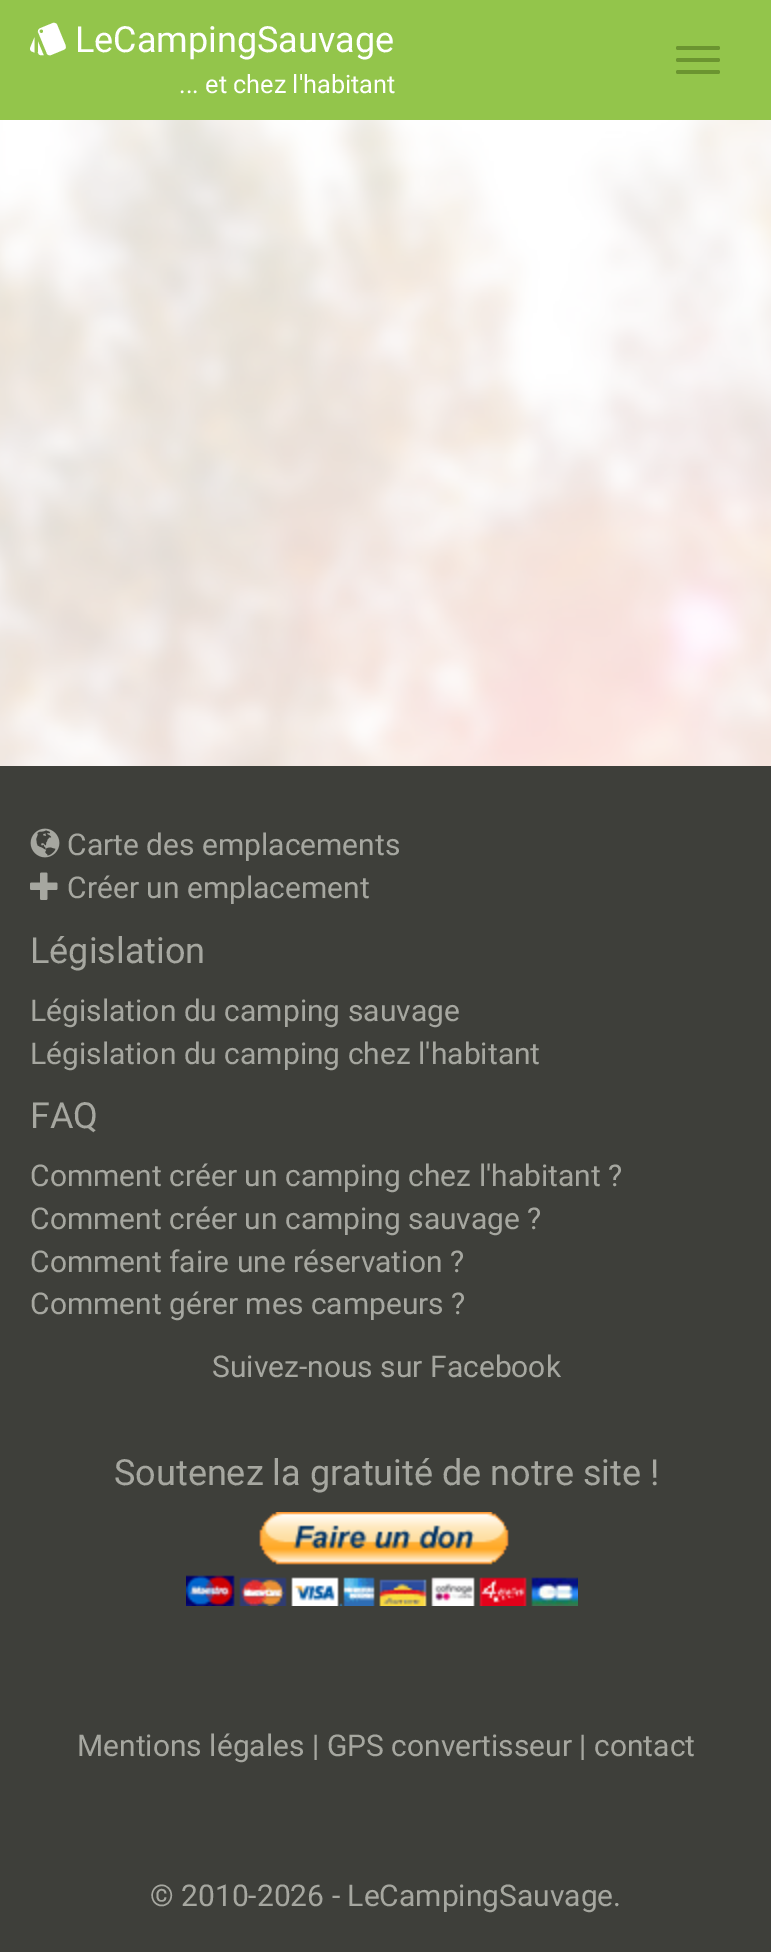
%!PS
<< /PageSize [771 1952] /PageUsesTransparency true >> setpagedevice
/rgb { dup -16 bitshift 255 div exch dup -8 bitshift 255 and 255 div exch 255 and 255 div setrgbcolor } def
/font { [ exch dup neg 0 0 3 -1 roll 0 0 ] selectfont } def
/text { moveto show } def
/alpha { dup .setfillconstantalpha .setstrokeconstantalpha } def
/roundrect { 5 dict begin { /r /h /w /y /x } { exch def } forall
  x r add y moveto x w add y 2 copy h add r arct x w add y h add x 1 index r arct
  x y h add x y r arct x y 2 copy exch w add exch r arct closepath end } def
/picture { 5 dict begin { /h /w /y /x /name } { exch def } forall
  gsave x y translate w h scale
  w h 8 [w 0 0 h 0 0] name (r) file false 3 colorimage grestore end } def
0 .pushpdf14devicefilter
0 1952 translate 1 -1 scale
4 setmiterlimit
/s1 { /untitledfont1-Regular 36 font 16#FFFFFF rgb } def
/s2 { /Roboto-Regular 36 font 16#FFFFFF rgb } def
/s3 { /Roboto-Regular 25.25 font 16#FFFFFF rgb } def
/s4 { /Roboto-Regular 30 font 16#A6A7A0 rgb } def
/s5 { /Roboto-Regular 36 font 16#A6A7A0 rgb } def
16#FFFFFF rgb
0 0 771 1952 rectfill
16#93C54B rgb
0 0 771 120 rectfill
s1
(>) 30 57 text
s2
(LeCampingSauvage) 75 52 text
s3
(... et chez l'habitant) 179 93 text
16#6B9430 rgb
676 46 44 4 2 roundrect fill
676 58 44 4 2 roundrect fill
676 70 44 4 2 roundrect fill
(pic1.raw) 0 120 771 646 picture
0.83 alpha
16#FFFFFF rgb
0 120 771 646 rectfill
1 alpha
16#3E3F3A rgb
0 766 771 1186 rectfill
(pic2.raw) 30 828 30 30 picture
s4
(Carte des emplacements) 67 855 text
(pic3.raw) 30 872 28 28 picture
(Créer un emplacement) 67 898 text
s5
(Législation) 30 963 text
s4
(Législation du camping sauvage) 30 1021 text
(Législation du camping chez l'habitant) 30 1064 text
s5
(FAQ) 30 1128 text
s4
(Comment créer un camping chez l'habitant ?) 30 1186 text
(Comment créer un camping sauvage ?) 30 1229 text
(Comment faire une réservation ?) 30 1272 text
(Comment gérer mes campeurs ?) 30 1314 text
(Suivez-nous sur Facebook) 212 1377 text
s5
(Soutenez la gratuité de notre site !) 114 1485 text
(pic4.raw) 186 1512 392 94 picture
s4
(Mentions légales | GPS convertisseur | contact) 77 1756 text
(© 2010-2026 - LeCampingSauvage.) 150 1906 text
.poppdf14devicefilter showpage
